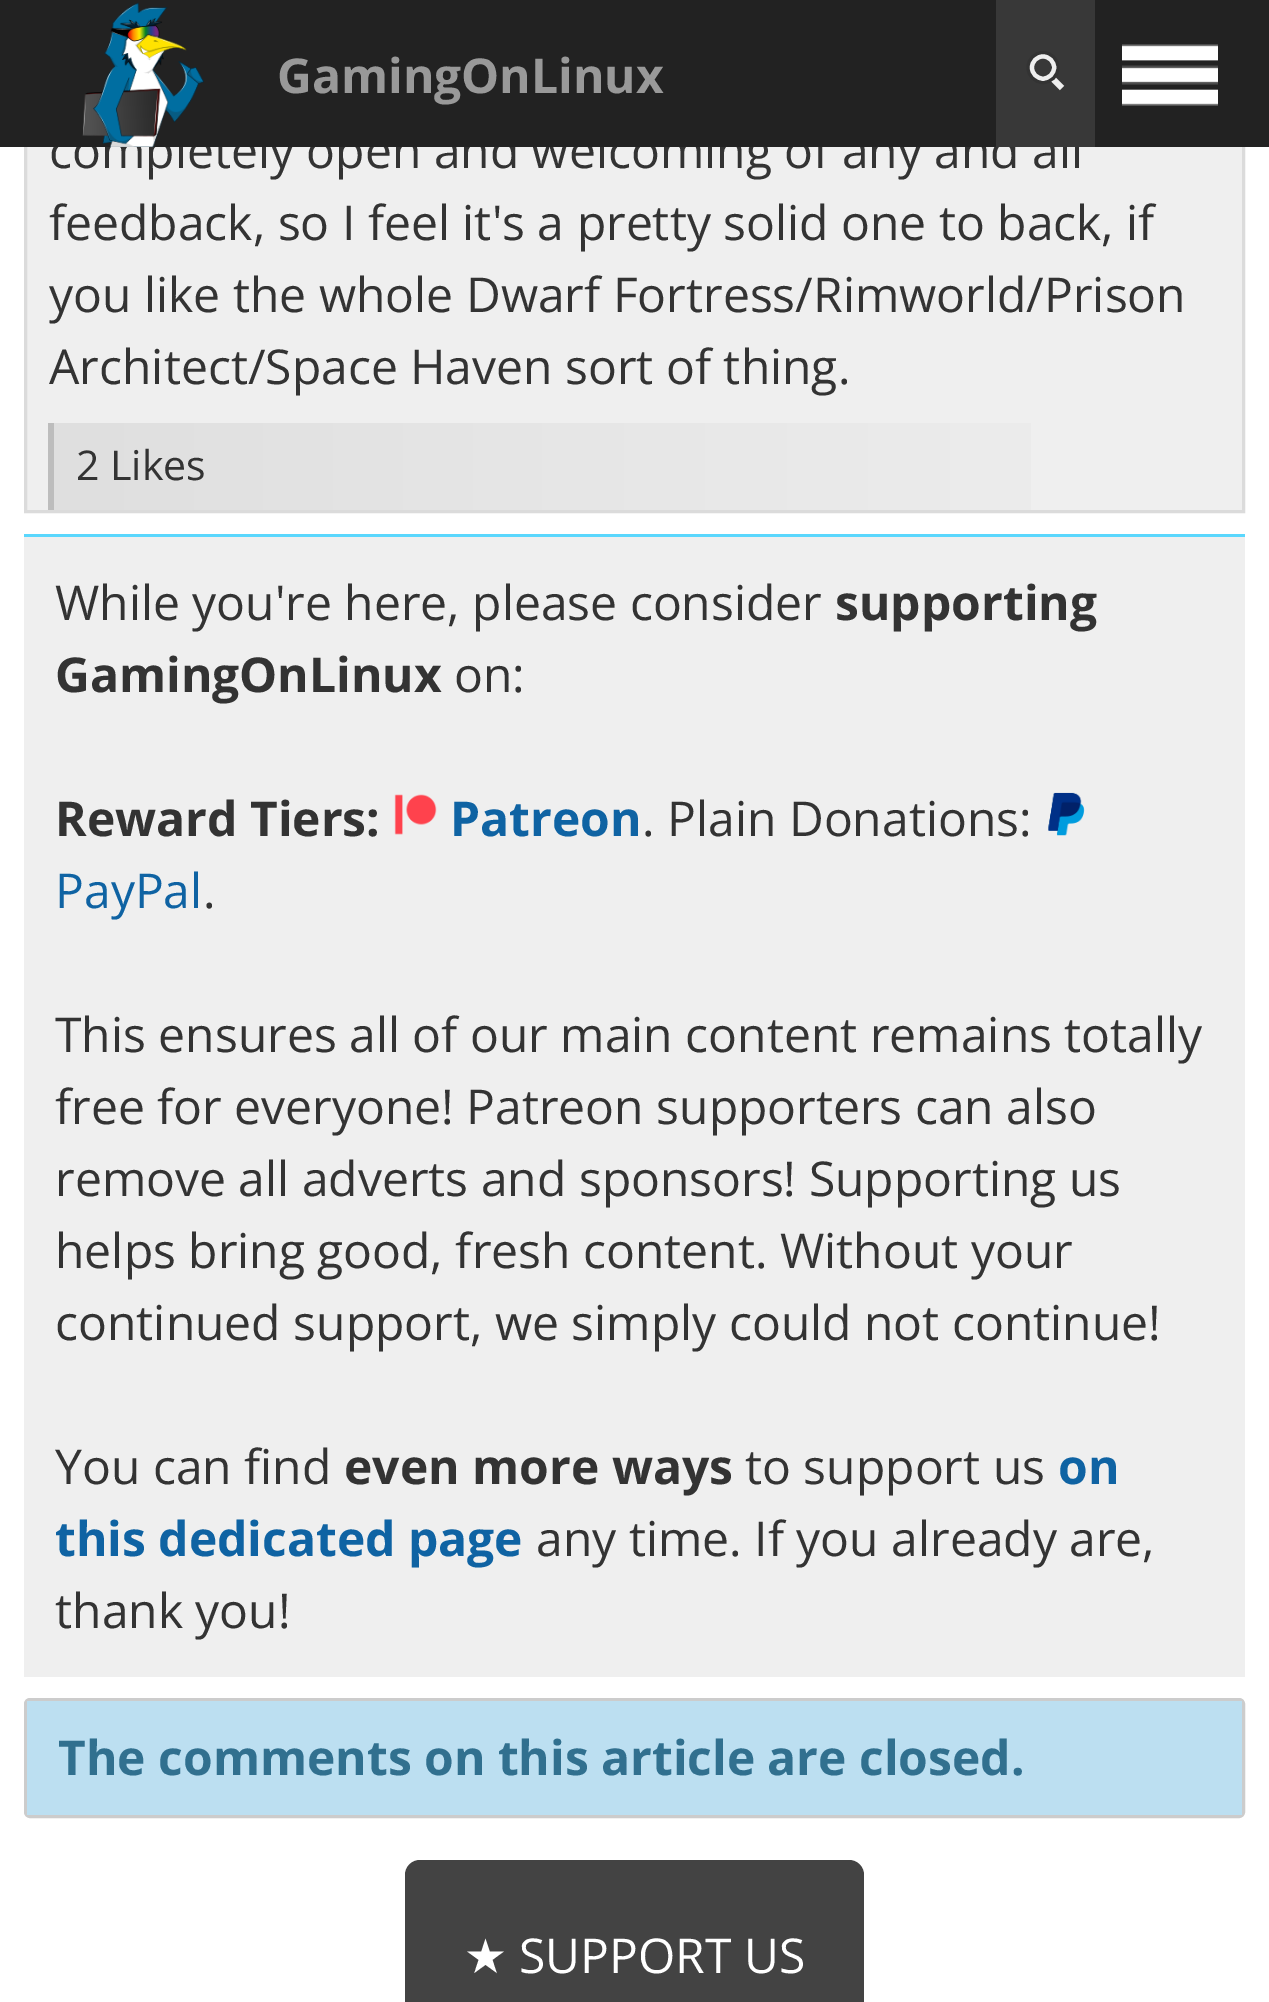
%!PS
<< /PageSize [1269 2002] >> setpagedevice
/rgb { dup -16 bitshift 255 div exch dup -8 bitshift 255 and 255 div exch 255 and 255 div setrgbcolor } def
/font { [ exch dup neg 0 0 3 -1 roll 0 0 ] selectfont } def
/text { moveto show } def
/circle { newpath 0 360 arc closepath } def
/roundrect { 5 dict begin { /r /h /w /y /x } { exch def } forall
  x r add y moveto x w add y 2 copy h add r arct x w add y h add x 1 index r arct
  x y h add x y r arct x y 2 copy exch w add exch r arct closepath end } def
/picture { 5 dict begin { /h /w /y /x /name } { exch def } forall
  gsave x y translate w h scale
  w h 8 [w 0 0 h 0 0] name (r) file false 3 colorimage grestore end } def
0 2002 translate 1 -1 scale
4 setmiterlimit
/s1 { /OpenSans-Regular 48 font 16#333333 rgb } def
/s2 { /OpenSans-Bold 48 font 16#999999 rgb } def
/s3 { /OpenSans-Regular 41 font 16#333333 rgb } def
/s4 { /OpenSans-Bold 48 font 16#333333 rgb } def
/s5 { /OpenSans-Bold 48 font 16#0F63A3 rgb } def
/s6 { /OpenSans-Regular 48 font 16#0F63A3 rgb } def
/s7 { /OpenSans-Bold 48 font 16#31708F rgb } def
/s8 { /DejaVuSans-Regular 48 font 16#FFFFFF rgb } def
/s9 { /OpenSans-Regular 48 font 16#FFFFFF rgb } def
16#FFFFFF rgb
0 0 1269 2002 rectfill
16#EFEFEF rgb
27 147 1215 363 rectfill
16#DBDBDB rgb
3 setlinewidth
25.5 -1.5 1218 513 rectstroke
s1
(completely open and welcoming of any and all) 49 168 text
16#222222 rgb
0 0 1269 147 rectfill
(pic1.raw) 82 2 122 145 picture
s2
(GamingOnLinux) 277 93 text
16#383838 rgb
996 0 99 147 rectfill
16#EEEEEE rgb
6 setlinewidth
1062 88 moveto 1050 76 lineto stroke
1043 67.5 12 circle stroke
16#333333 rgb
3 setlinewidth
1043 67.5 15 circle stroke
(pic2.raw) 1122 44 96 62 picture
s1
(feedback, so I feel it's a pretty solid one to back, if) 49 240 text
(you like the whole Dwarf Fortress/Rimworld/Prison) 49 312 text
(Architect/Space Haven sort of thing.) 49 384 text
gsave 54 423 moveto 1031 423 lineto 1031 510 lineto 54 510 lineto closepath clip newpath
<< /ShadingType 2 /ColorSpace /DeviceRGB /Coords [1212 467 54 467] /Extend [true true] /Function << /FunctionType 2 /Domain [0 1] /C0 [0.937 0.937 0.937] /C1 [0.875 0.875 0.875] /N 1 >> >> shfill grestore
16#BDBDBD rgb
48 423 6 87 rectfill
s3
(2 Likes) 76 480 text
16#5AD7FD rgb
24 534 1221 3 rectfill
16#EFEFEF rgb
24 537 1221 1140 rectfill
s1
(While you're here, please consider) 55 620 text
s4
(supporting) 835 620 text
(GamingOnLinux) 55 692 text
s1
(on:) 454 692 text
s4
(Reward Tiers:) 55 836 text
(pic3.raw) 394 794 43 41 picture
s5
(Patreon) 450 836 text
s1
(. Plain Donations:) 642 836 text
(pic4.raw) 1048 792 37 44 picture
s6
(PayPal) 55 908 text
s1
(.) 203 908 text
(This ensures all of our main content remains totally) 55 1052 text
(free for everyone! Patreon supporters can also) 55 1124 text
(remove all adverts and sponsors! Supporting us) 55 1196 text
(helps bring good, fresh content. Without your) 55 1268 text
(continued support, we simply could not continue!) 55 1340 text
(You can find) 55 1484 text
s4
(even more ways) 344 1484 text
s1
(to support us) 745 1484 text
s5
(on) 1058 1484 text
(this dedicated page) 55 1556 text
s1
(any time. If you already are,) 536 1556 text
(thank you!) 55 1628 text
16#CCCCCC rgb
25.5 1699.5 1218 117 4.5 roundrect stroke
16#BCDFF1 rgb
27 1701 1215 114 rectfill
s7
(The comments on this article are closed.) 58 1775 text
16#434343 rgb
405 1860 459 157 15 roundrect fill
s8
(★) 464 1973 text
s9
(SUPPORT US) 519 1973 text
showpage
